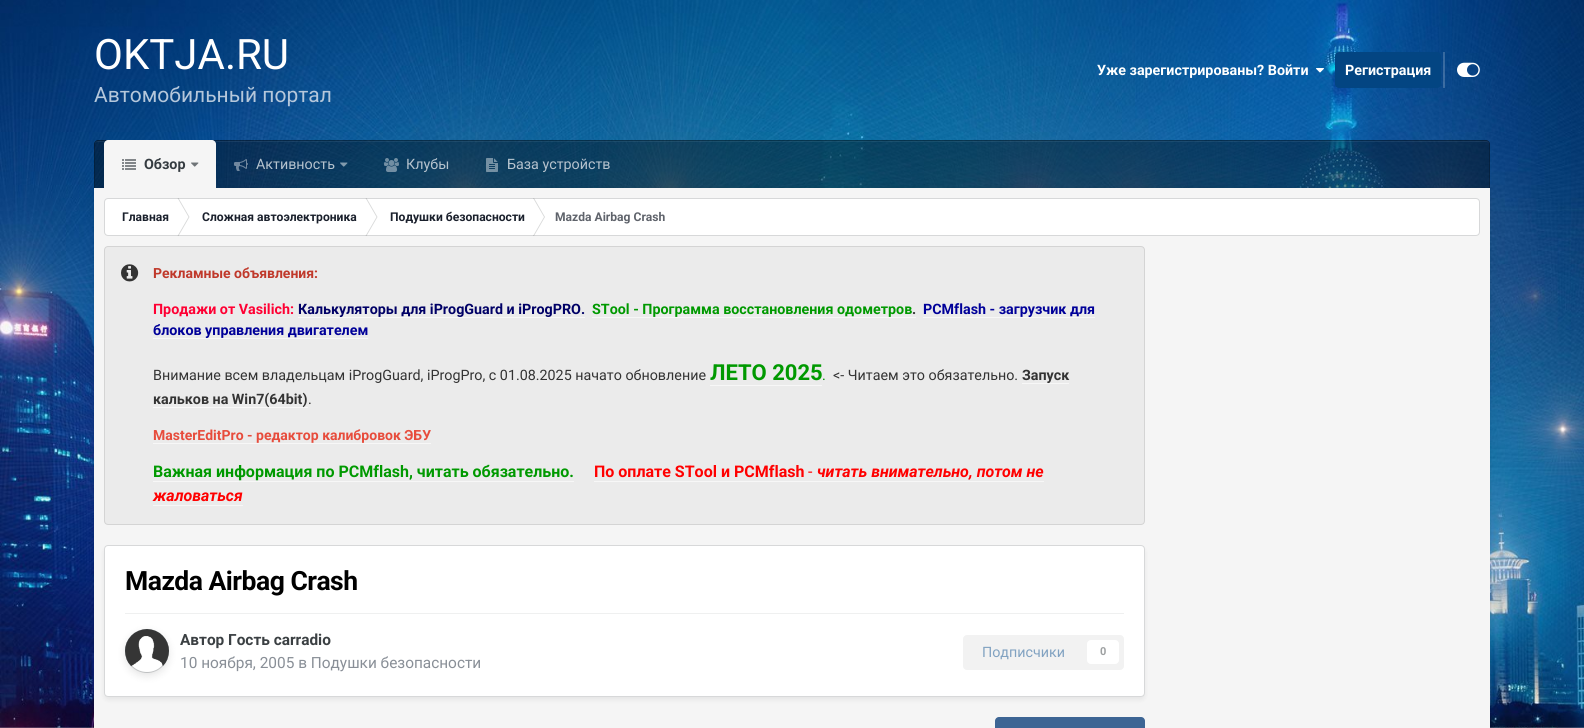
#include <cairo.h>
#include <math.h>
#include <stddef.h>

typedef struct { double x, y; const char *s; } line_t;

static void ink(cairo_t *ctx, unsigned color) {
    cairo_set_source_rgb(ctx, (color >> 16) / 255.0, (color >> 8 & 255) / 255.0, (color & 255) / 255.0);
}

static void write_spaced(cairo_t *ctx, double x, double y, const char *s, double letter, double word) {
    cairo_move_to(ctx, x, y);
    while (*s) {
        char ch[5] = {0};
        int n = 0;
        do ch[n++] = *s++; while ((*s & 0xC0) == 0x80);
        cairo_show_text(ctx, ch);
        cairo_rel_move_to(ctx, letter + word * (*ch == ' '), 0);
    }
}

static void round_path(cairo_t *ctx, double x, double y, double w, double h, double r) {
    cairo_new_sub_path(ctx);
    cairo_arc(ctx, x + w - r, y + h - r, r, 0, M_PI / 2);
    cairo_arc(ctx, x + r, y + h - r, r, M_PI / 2, M_PI);
    cairo_arc(ctx, x + r, y + r, r, M_PI, 1.5 * M_PI);
    cairo_arc(ctx, x + w - r, y + r, r, 1.5 * M_PI, 2 * M_PI);
    cairo_close_path(ctx);
}

static void blur_box(cairo_t *ctx, double x, double y, double w, double h, double r, double blur, double alpha) {
    cairo_push_group_with_content(ctx, CAIRO_CONTENT_ALPHA);
    cairo_set_operator(ctx, CAIRO_OPERATOR_SOURCE);
    for (int i = 15; i >= -15 && fmin(w, h) + blur * i / 3 > 0; i -= 2) {
        double e = blur * i / 6;
        cairo_set_source_rgba(ctx, 0, 0, 0, alpha * erfc((i - 1) / 8.5) / 2);
        round_path(ctx, x - e, y - e, w + 2 * e, h + 2 * e, fmax(0, fmin(r + e + blur * .6, fmin(w, h) / 2 + e)));
        cairo_fill(ctx);
    }
    cairo_pattern_t *soft = cairo_pop_group(ctx);
    cairo_mask(ctx, soft);
    cairo_pattern_destroy(soft);
}

static void paste(cairo_t *ctx, const char *path, double x, double y, double w, double h) {
    cairo_surface_t *image = cairo_image_surface_create_from_png(path);
    cairo_save(ctx);
    cairo_set_source_surface(ctx, image, x, y);
    cairo_rectangle(ctx, x, y, w, h);
    cairo_fill(ctx);
    cairo_restore(ctx);
    cairo_surface_destroy(image);
}

int main(void) {
    cairo_surface_t *surface = cairo_image_surface_create(CAIRO_FORMAT_RGB24, 1584, 728);
    cairo_t *ctx = cairo_create(surface);
    cairo_font_options_t *options = cairo_font_options_create();
    cairo_font_options_set_hint_metrics(options, CAIRO_HINT_METRICS_OFF);
    cairo_font_options_set_hint_style(options, CAIRO_HINT_STYLE_NONE);
    cairo_set_font_options(ctx, options);
    cairo_set_miter_limit(ctx, 4);
    ink(ctx, 0xFFFFFF);
    cairo_paint(ctx);
    paste(ctx, "media/1.png", 0, 0, 1584, 728);
    cairo_select_font_face(ctx, "Roboto", CAIRO_FONT_SLANT_NORMAL, CAIRO_FONT_WEIGHT_NORMAL);
    cairo_set_font_size(ctx, 42);
    ink(ctx, 0xFFFFFF);
    cairo_move_to(ctx, 94, 69);
    cairo_show_text(ctx, "OKTJA.RU");
    cairo_set_font_size(ctx, 21);
    ink(ctx, 0xB5C7DB);
    cairo_move_to(ctx, 94, 102);
    cairo_show_text(ctx, "Автомобильный портал");
    cairo_select_font_face(ctx, "Roboto", CAIRO_FONT_SLANT_NORMAL, CAIRO_FONT_WEIGHT_BOLD);
    cairo_set_font_size(ctx, 14.3);
    ink(ctx, 0xFFFFFF);
    cairo_move_to(ctx, 1097, 75);
    cairo_show_text(ctx, "Уже зарегистрированы? Войти");
    paste(ctx, "media/2.png", 1316, 68, 8, 5);
    ink(ctx, 0x034582);
    round_path(ctx, 1335, 52, 106, 36, 4);
    cairo_fill(ctx);
    ink(ctx, 0xFFFFFF);
    cairo_move_to(ctx, 1345, 75);
    cairo_show_text(ctx, "Регистрация");
    cairo_set_source_rgba(ctx, 1, 1, 1, 0.2);
    cairo_rectangle(ctx, 1443, 52, 2, 36);
    cairo_fill(ctx);
    paste(ctx, "media/3.png", 1457, 62, 23, 15);
    ink(ctx, 0x000000);
    blur_box(ctx, 94, 189, 1396, 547, 3, 1.5, 0.08);
    blur_box(ctx, 94, 188, 1396, 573, 3, 10, 0.06);
    cairo_set_source_rgba(ctx, 0, 0, 0, 0.4);
    cairo_new_path(ctx);
    cairo_move_to(ctx, 98, 140);
    cairo_line_to(ctx, 1486, 140);
    cairo_curve_to(ctx, 1488, 140, 1490, 142, 1490, 144);
    cairo_line_to(ctx, 1490, 188);
    cairo_line_to(ctx, 94, 188);
    cairo_line_to(ctx, 94, 144);
    cairo_curve_to(ctx, 94, 142, 96, 140, 98, 140);
    cairo_close_path(ctx);
    cairo_fill(ctx);
    cairo_set_source_rgba(ctx, 1, 1, 1, 0.07);
    cairo_new_path(ctx);
    cairo_move_to(ctx, 98, 142);
    cairo_line_to(ctx, 1486, 142);
    cairo_curve_to(ctx, 1488, 142, 1489, 143, 1489, 145);
    cairo_line_to(ctx, 1489, 144);
    cairo_curve_to(ctx, 1489, 142, 1488, 141, 1486, 141);
    cairo_line_to(ctx, 98, 141);
    cairo_curve_to(ctx, 96, 141, 95, 142, 95, 144);
    cairo_line_to(ctx, 95, 145);
    cairo_curve_to(ctx, 95, 143, 96, 142, 98, 142);
    cairo_close_path(ctx);
    cairo_fill(ctx);
    cairo_set_source_rgba(ctx, 0, 0, 0, 0.2);
    cairo_set_fill_rule(ctx, CAIRO_FILL_RULE_EVEN_ODD);
    cairo_new_path(ctx);
    cairo_move_to(ctx, 98, 140);
    cairo_line_to(ctx, 1486, 140);
    cairo_curve_to(ctx, 1488, 140, 1490, 142, 1490, 144);
    cairo_line_to(ctx, 1490, 188);
    cairo_line_to(ctx, 94, 188);
    cairo_line_to(ctx, 94, 144);
    cairo_curve_to(ctx, 94, 142, 96, 140, 98, 140);
    cairo_close_path(ctx);
    cairo_move_to(ctx, 98, 141);
    cairo_line_to(ctx, 1486, 141);
    cairo_curve_to(ctx, 1488, 141, 1489, 142, 1489, 144);
    cairo_line_to(ctx, 1489, 188);
    cairo_line_to(ctx, 95, 188);
    cairo_line_to(ctx, 95, 144);
    cairo_curve_to(ctx, 95, 142, 96, 141, 98, 141);
    cairo_close_path(ctx);
    cairo_fill(ctx);
    ink(ctx, 0xF5F5F5);
    cairo_new_path(ctx);
    cairo_move_to(ctx, 108, 140);
    cairo_line_to(ctx, 212, 140);
    cairo_curve_to(ctx, 214, 140, 216, 142, 216, 144);
    cairo_line_to(ctx, 216, 188);
    cairo_line_to(ctx, 104, 188);
    cairo_line_to(ctx, 104, 144);
    cairo_curve_to(ctx, 104, 142, 106, 140, 108, 140);
    cairo_close_path(ctx);
    cairo_fill(ctx);
    paste(ctx, "media/4.png", 122, 159, 14, 11);
    ink(ctx, 0x353C41);
    cairo_move_to(ctx, 144, 169);
    cairo_show_text(ctx, "Обзор");
    paste(ctx, "media/5.png", 191, 162, 8, 5);
    paste(ctx, "media/6.png", 234, 159, 14, 12);
    cairo_select_font_face(ctx, "Roboto", CAIRO_FONT_SLANT_NORMAL, CAIRO_FONT_WEIGHT_NORMAL);
    ink(ctx, 0xB6C3CE);
    cairo_move_to(ctx, 256, 169);
    cairo_show_text(ctx, "Активность");
    paste(ctx, "media/7.png", 340, 162, 8, 5);
    paste(ctx, "media/8.png", 384, 158, 15, 14);
    cairo_move_to(ctx, 406, 169);
    cairo_show_text(ctx, "Клубы");
    paste(ctx, "media/9.png", 486, 158, 12, 14);
    cairo_move_to(ctx, 507, 169);
    cairo_show_text(ctx, "База устройств");
    ink(ctx, 0xF5F5F5);
    cairo_rectangle(ctx, 94, 188, 1396, 540);
    cairo_fill(ctx);
    ink(ctx, 0xFFFFFF);
    round_path(ctx, 104, 198, 1376, 38, 4);
    cairo_fill(ctx);
    ink(ctx, 0xD8D9D9);
    cairo_set_fill_rule(ctx, CAIRO_FILL_RULE_WINDING);
    cairo_new_path(ctx);
    cairo_move_to(ctx, 177.5, 198);
    cairo_line_to(ctx, 178.5, 198);
    cairo_line_to(ctx, 189.5, 217);
    cairo_line_to(ctx, 188.5, 217);
    cairo_close_path(ctx);
    cairo_move_to(ctx, 177.5, 236);
    cairo_line_to(ctx, 178.5, 236);
    cairo_line_to(ctx, 189.5, 217);
    cairo_line_to(ctx, 188.5, 217);
    cairo_close_path(ctx);
    cairo_fill(ctx);
    cairo_new_path(ctx);
    cairo_move_to(ctx, 365.5, 198);
    cairo_line_to(ctx, 366.5, 198);
    cairo_line_to(ctx, 377.5, 217);
    cairo_line_to(ctx, 376.5, 217);
    cairo_close_path(ctx);
    cairo_move_to(ctx, 365.5, 236);
    cairo_line_to(ctx, 366.5, 236);
    cairo_line_to(ctx, 377.5, 217);
    cairo_line_to(ctx, 376.5, 217);
    cairo_close_path(ctx);
    cairo_fill(ctx);
    cairo_new_path(ctx);
    cairo_move_to(ctx, 533, 198);
    cairo_line_to(ctx, 534, 198);
    cairo_line_to(ctx, 545, 217);
    cairo_line_to(ctx, 544, 217);
    cairo_close_path(ctx);
    cairo_move_to(ctx, 533, 236);
    cairo_line_to(ctx, 534, 236);
    cairo_line_to(ctx, 545, 217);
    cairo_line_to(ctx, 544, 217);
    cairo_close_path(ctx);
    cairo_fill(ctx);
    round_path(ctx, 104.5, 198.5, 1375, 37, 3.5);
    cairo_set_source_rgba(ctx, 0.231, 0.251, 0.263, 0.2);
    cairo_set_line_width(ctx, 1);
    cairo_stroke(ctx);
    cairo_select_font_face(ctx, "Roboto", CAIRO_FONT_SLANT_NORMAL, CAIRO_FONT_WEIGHT_BOLD);
    cairo_set_font_size(ctx, 12.1);
    ink(ctx, 0x1A202C);
    {
        static const line_t items[] = {
            {122, 221, "Главная"},
            {202, 221, "Сложная автоэлектроника"},
            {390, 221, "Подушки безопасности"},
        };
        for (size_t i = 0; i < sizeof items / sizeof *items; i++) {
            cairo_move_to(ctx, items[i].x, items[i].y);
            cairo_show_text(ctx, items[i].s);
        }
    }
    ink(ctx, 0x5F636B);
    cairo_move_to(ctx, 555, 221);
    cairo_show_text(ctx, "Mazda Airbag Crash");
    ink(ctx, 0xEBEBEB);
    round_path(ctx, 104, 246, 1041, 279, 4);
    cairo_fill(ctx);
    round_path(ctx, 104.5, 246.5, 1040, 278, 3.5);
    cairo_set_source_rgba(ctx, 0, 0, 0, 0.1);
    cairo_stroke(ctx);
    paste(ctx, "media/10.png", 121, 264, 18, 18);
    cairo_set_font_size(ctx, 14);
    ink(ctx, 0xC0392B);
    cairo_move_to(ctx, 153, 278);
    cairo_show_text(ctx, "Рекламные объявления:");
    cairo_set_font_size(ctx, 14.3);
    ink(ctx, 0xFF0033);
    cairo_move_to(ctx, 153, 314);
    cairo_show_text(ctx, "Продажи от Vasilich:");
    ink(ctx, 0xF7F7F7);
    cairo_rectangle(ctx, 298, 317, 287, 1);
    cairo_fill(ctx);
    ink(ctx, 0x000066);
    cairo_move_to(ctx, 298, 314);
    cairo_show_text(ctx, "Калькуляторы для iProgGuard и iProgPRO.");
    ink(ctx, 0x009900);
    cairo_move_to(ctx, 592, 314);
    cairo_show_text(ctx, "STool - Программа восстановления одометров");
    ink(ctx, 0x333333);
    cairo_move_to(ctx, 912, 314);
    cairo_show_text(ctx, ".");
    ink(ctx, 0xF7F7F7);
    cairo_rectangle(ctx, 592, 317, 324, 1);
    cairo_fill(ctx);
    cairo_rectangle(ctx, 923, 317, 172, 1);
    cairo_fill(ctx);
    ink(ctx, 0x000099);
    cairo_move_to(ctx, 923, 314);
    cairo_show_text(ctx, "PCMflash - загрузчик для");
    ink(ctx, 0xF7F7F7);
    cairo_rectangle(ctx, 153, 338, 215, 1);
    cairo_fill(ctx);
    ink(ctx, 0x000099);
    cairo_move_to(ctx, 153, 335);
    cairo_show_text(ctx, "блоков управления двигателем");
    cairo_select_font_face(ctx, "Roboto", CAIRO_FONT_SLANT_NORMAL, CAIRO_FONT_WEIGHT_NORMAL);
    ink(ctx, 0x333333);
    cairo_move_to(ctx, 153, 380);
    cairo_show_text(ctx, "Внимание всем владельцам iProgGuard, iProgPro, с 01.08.2025 начато обновление");
    cairo_select_font_face(ctx, "Roboto", CAIRO_FONT_SLANT_NORMAL, CAIRO_FONT_WEIGHT_BOLD);
    cairo_set_font_size(ctx, 22);
    ink(ctx, 0x009900);
    cairo_move_to(ctx, 710, 380);
    cairo_show_text(ctx, "ЛЕТО 2025");
    ink(ctx, 0xF7F7F7);
    cairo_rectangle(ctx, 710, 385, 112, 1);
    cairo_fill(ctx);
    cairo_select_font_face(ctx, "Roboto", CAIRO_FONT_SLANT_NORMAL, CAIRO_FONT_WEIGHT_NORMAL);
    cairo_set_font_size(ctx, 14.3);
    ink(ctx, 0x009900);
    cairo_move_to(ctx, 822, 380);
    cairo_show_text(ctx, ".");
    ink(ctx, 0x333333);
    cairo_move_to(ctx, 833, 380);
    cairo_show_text(ctx, "<- Читаем это обязательно.");
    ink(ctx, 0xF7F7F7);
    cairo_rectangle(ctx, 1022, 383, 47, 1);
    cairo_fill(ctx);
    cairo_select_font_face(ctx, "Roboto", CAIRO_FONT_SLANT_NORMAL, CAIRO_FONT_WEIGHT_BOLD);
    ink(ctx, 0x333333);
    cairo_move_to(ctx, 1022, 380);
    cairo_show_text(ctx, "Запуск");
    ink(ctx, 0xF7F7F7);
    cairo_rectangle(ctx, 153, 407, 155, 1);
    cairo_fill(ctx);
    ink(ctx, 0x333333);
    cairo_move_to(ctx, 153, 404);
    cairo_show_text(ctx, "кальков на Win7(64bit)");
    cairo_select_font_face(ctx, "Roboto", CAIRO_FONT_SLANT_NORMAL, CAIRO_FONT_WEIGHT_NORMAL);
    cairo_move_to(ctx, 308, 404);
    cairo_show_text(ctx, ".");
    cairo_select_font_face(ctx, "Roboto", CAIRO_FONT_SLANT_NORMAL, CAIRO_FONT_WEIGHT_BOLD);
    cairo_set_font_size(ctx, 14);
    ink(ctx, 0xE74C3C);
    cairo_move_to(ctx, 153, 440);
    cairo_show_text(ctx, "MasterEditPro - редактор калибровок ЭБУ");
    ink(ctx, 0xF7F7F7);
    cairo_rectangle(ctx, 153, 443, 278, 1);
    cairo_fill(ctx);
    cairo_set_font_size(ctx, 16);
    ink(ctx, 0x009900);
    cairo_move_to(ctx, 153, 477);
    cairo_show_text(ctx, "Важная информация по PCMflash, читать обязательно.");
    ink(ctx, 0xF7F7F7);
    cairo_rectangle(ctx, 153, 481, 421, 1);
    cairo_fill(ctx);
    ink(ctx, 0xFF0000);
    cairo_move_to(ctx, 594, 477);
    cairo_show_text(ctx, "По оплате STool и PCMflash");
    cairo_select_font_face(ctx, "Roboto", CAIRO_FONT_SLANT_NORMAL, CAIRO_FONT_WEIGHT_NORMAL);
    cairo_move_to(ctx, 808, 477);
    cairo_show_text(ctx, "-");
    cairo_select_font_face(ctx, "Roboto", CAIRO_FONT_SLANT_ITALIC, CAIRO_FONT_WEIGHT_BOLD);
    cairo_move_to(ctx, 817, 477);
    cairo_show_text(ctx, "читать внимательно, потом не");
    ink(ctx, 0xF7F7F7);
    cairo_rectangle(ctx, 594, 481, 450, 1);
    cairo_fill(ctx);
    ink(ctx, 0xFF0000);
    cairo_move_to(ctx, 153, 501);
    cairo_show_text(ctx, "жаловаться");
    ink(ctx, 0xF7F7F7);
    cairo_rectangle(ctx, 153, 505, 90, 1);
    cairo_fill(ctx);
    ink(ctx, 0x000000);
    blur_box(ctx, 105, 549, 1039, 150, 3, 3, 0.08);
    ink(ctx, 0xFFFFFF);
    round_path(ctx, 104, 545, 1041, 152, 4);
    cairo_fill(ctx);
    round_path(ctx, 104.5, 545.5, 1040, 151, 3.5);
    cairo_set_source_rgba(ctx, 0.231, 0.251, 0.263, 0.2);
    cairo_stroke(ctx);
    cairo_select_font_face(ctx, "Roboto", CAIRO_FONT_SLANT_NORMAL, CAIRO_FONT_WEIGHT_BOLD);
    cairo_set_font_size(ctx, 26.5);
    ink(ctx, 0x000000);
    write_spaced(ctx, 125, 590, "Mazda Airbag Crash", -0.5, 0);
    ink(ctx, 0xEFF0F0);
    cairo_rectangle(ctx, 125, 613, 999, 1);
    cairo_fill(ctx);
    paste(ctx, "media/11.png", 125, 629, 44, 44);
    cairo_save(ctx);
    cairo_set_fill_rule(ctx, CAIRO_FILL_RULE_EVEN_ODD);
    cairo_new_path(ctx);
    cairo_move_to(ctx, 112, 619);
    cairo_line_to(ctx, 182, 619);
    cairo_line_to(ctx, 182, 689);
    cairo_line_to(ctx, 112, 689);
    cairo_close_path(ctx);
    cairo_move_to(ctx, 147, 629);
    cairo_curve_to(ctx, 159, 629, 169, 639, 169, 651);
    cairo_curve_to(ctx, 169, 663, 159, 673, 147, 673);
    cairo_curve_to(ctx, 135, 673, 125, 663, 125, 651);
    cairo_curve_to(ctx, 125, 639, 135, 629, 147, 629);
    cairo_close_path(ctx);
    cairo_clip(ctx);
    ink(ctx, 0x000000);
    blur_box(ctx, 125, 632, 44, 44, 22, 4, 0.1);
    cairo_restore(ctx);
    cairo_arc(ctx, 147, 651, 21.5, 0, 2 * M_PI);
    cairo_set_source_rgba(ctx, 0.231, 0.251, 0.263, 0.3);
    cairo_stroke(ctx);
    cairo_set_font_size(ctx, 15.4);
    ink(ctx, 0x3B4043);
    cairo_move_to(ctx, 180, 645);
    cairo_show_text(ctx, "Автор Гость carradio");
    cairo_select_font_face(ctx, "Roboto", CAIRO_FONT_SLANT_NORMAL, CAIRO_FONT_WEIGHT_NORMAL);
    ink(ctx, 0x898F97);
    cairo_move_to(ctx, 180, 668);
    cairo_show_text(ctx, "10 ноября, 2005 в Подушки безопасности");
    ink(ctx, 0xF2F2F2);
    round_path(ctx, 963, 635, 161, 35, 4);
    cairo_fill(ctx);
    cairo_set_font_size(ctx, 14.3);
    ink(ctx, 0x81A2C1);
    cairo_move_to(ctx, 982, 657);
    cairo_show_text(ctx, "Подписчики");
    ink(ctx, 0xFFFFFF);
    round_path(ctx, 1087, 640, 32, 24, 4);
    cairo_fill(ctx);
    cairo_select_font_face(ctx, "Roboto", CAIRO_FONT_SLANT_NORMAL, CAIRO_FONT_WEIGHT_BOLD);
    cairo_set_font_size(ctx, 11);
    ink(ctx, 0x9DA0A1);
    cairo_move_to(ctx, 1100, 655);
    cairo_show_text(ctx, "0");
    ink(ctx, 0x3D6594);
    round_path(ctx, 995, 717, 150, 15, 4);
    cairo_fill(ctx);
    cairo_surface_write_to_png(surface, "image.png");
    cairo_font_options_destroy(options);
    cairo_destroy(ctx);
    cairo_surface_destroy(surface);
    return 0;
}
